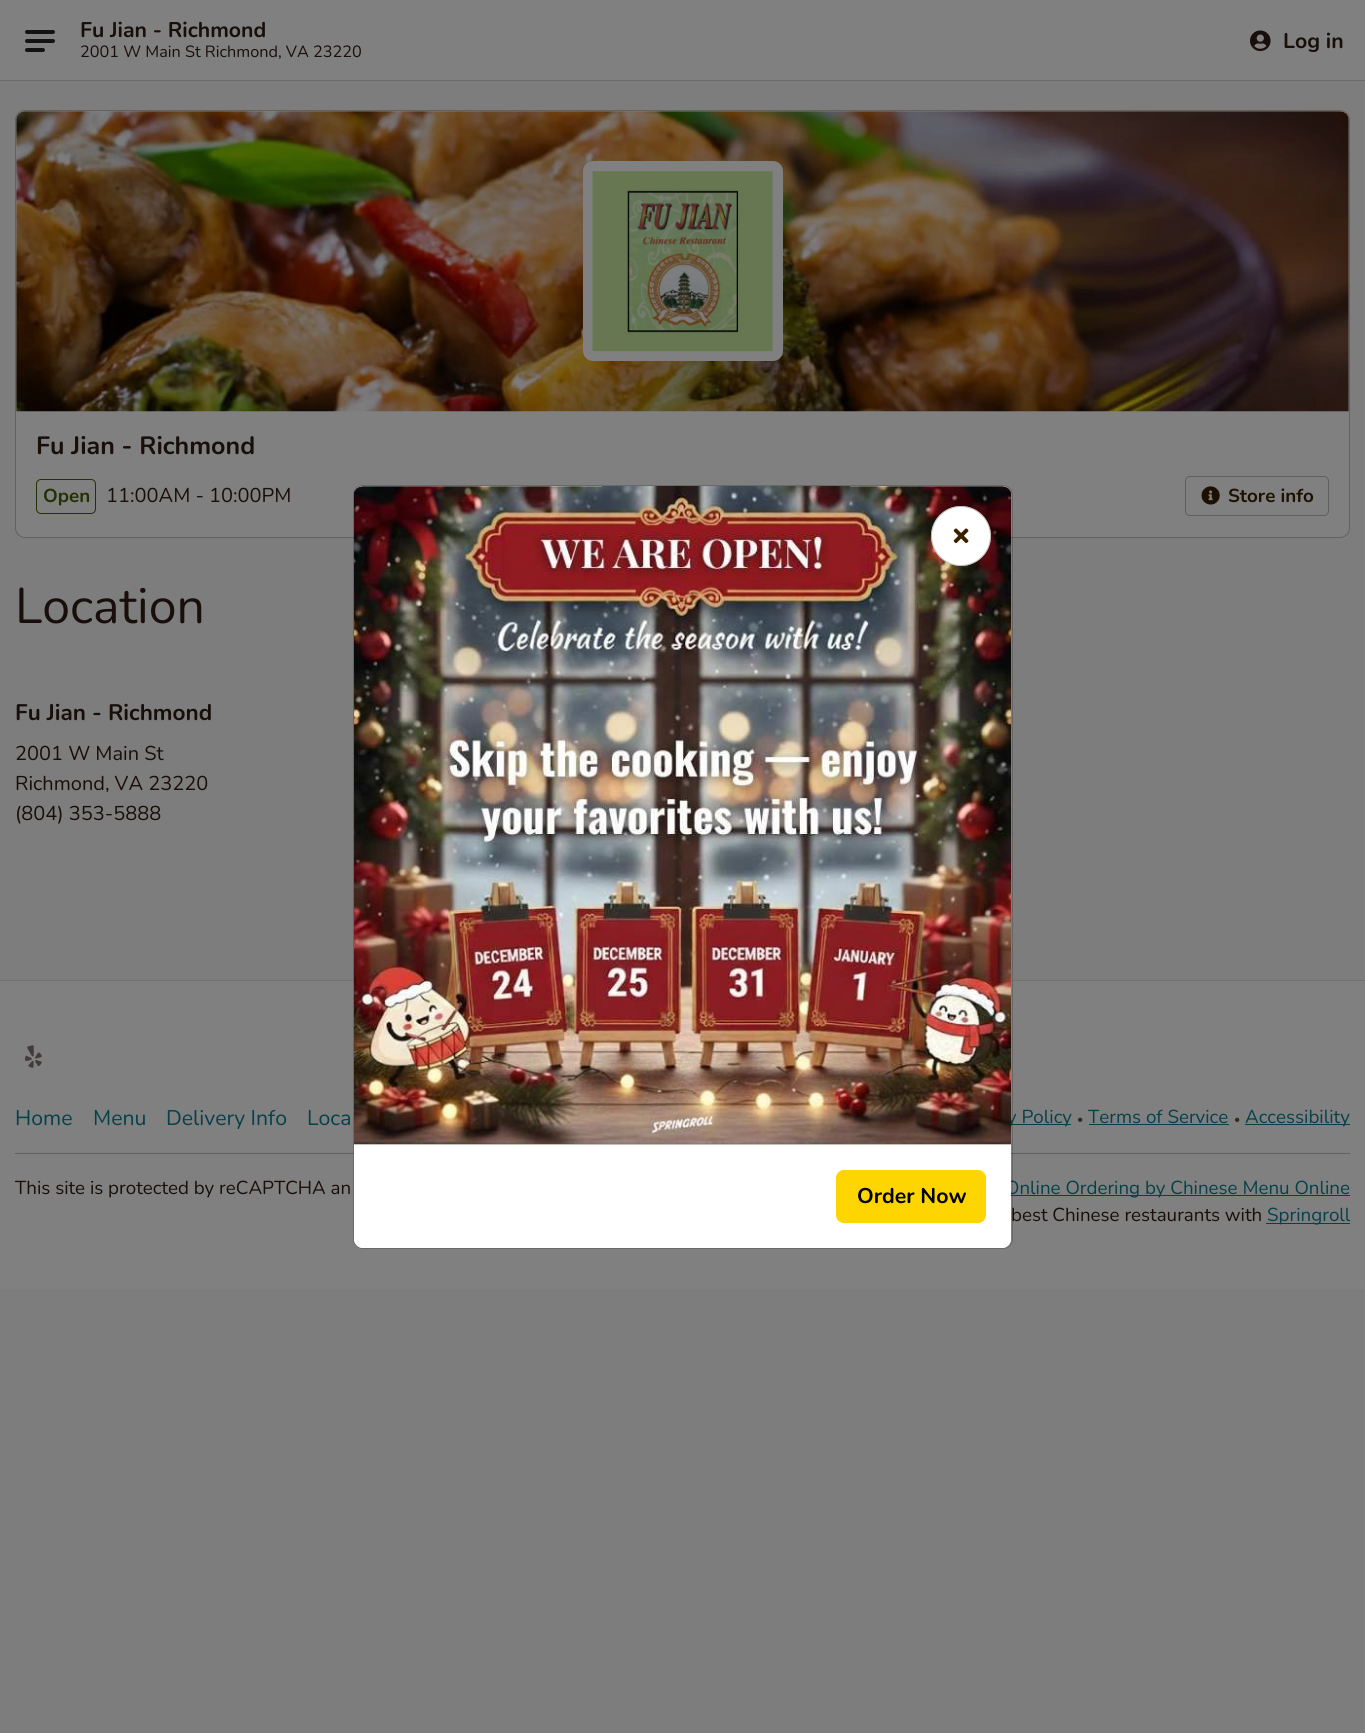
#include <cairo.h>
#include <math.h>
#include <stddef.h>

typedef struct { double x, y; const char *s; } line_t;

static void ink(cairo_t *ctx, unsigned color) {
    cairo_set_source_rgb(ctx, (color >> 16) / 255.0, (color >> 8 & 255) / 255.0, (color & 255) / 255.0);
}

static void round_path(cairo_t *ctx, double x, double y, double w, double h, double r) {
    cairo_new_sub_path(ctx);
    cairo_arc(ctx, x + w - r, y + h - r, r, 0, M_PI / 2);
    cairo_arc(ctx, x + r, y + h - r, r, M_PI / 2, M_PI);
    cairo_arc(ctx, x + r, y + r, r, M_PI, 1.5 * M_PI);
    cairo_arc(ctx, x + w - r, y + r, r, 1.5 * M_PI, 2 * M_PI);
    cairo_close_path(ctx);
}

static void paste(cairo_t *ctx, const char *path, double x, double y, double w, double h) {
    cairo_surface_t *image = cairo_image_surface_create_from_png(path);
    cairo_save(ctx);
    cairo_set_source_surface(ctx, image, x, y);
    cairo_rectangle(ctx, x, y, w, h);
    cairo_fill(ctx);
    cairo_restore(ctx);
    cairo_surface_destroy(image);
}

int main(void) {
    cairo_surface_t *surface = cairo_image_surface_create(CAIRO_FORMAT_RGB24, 1365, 1733);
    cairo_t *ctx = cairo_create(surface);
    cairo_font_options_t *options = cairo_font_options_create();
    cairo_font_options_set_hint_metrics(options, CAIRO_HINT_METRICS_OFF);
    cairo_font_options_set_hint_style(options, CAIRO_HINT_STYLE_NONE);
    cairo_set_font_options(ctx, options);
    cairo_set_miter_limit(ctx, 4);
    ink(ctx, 0x7E7D7D);
    cairo_paint(ctx);
    ink(ctx, 0x6C6A67);
    cairo_rectangle(ctx, 0, 80, 1365, 1);
    cairo_fill(ctx);
    ink(ctx, 0x808080);
    cairo_rectangle(ctx, 0, 0, 1365, 80);
    cairo_fill(ctx);
    ink(ctx, 0x111315);
    round_path(ctx, 25, 30, 30, 4, 2);
    cairo_fill(ctx);
    round_path(ctx, 25, 39, 30, 4, 2);
    cairo_fill(ctx);
    round_path(ctx, 25, 48, 20, 4, 2);
    cairo_fill(ctx);
    cairo_select_font_face(ctx, "Nunito", CAIRO_FONT_SLANT_NORMAL, CAIRO_FONT_WEIGHT_BOLD);
    cairo_set_font_size(ctx, 21.25);
    ink(ctx, 0x180F0C);
    cairo_move_to(ctx, 80, 37);
    cairo_show_text(ctx, "Fu Jian - Richmond");
    cairo_select_font_face(ctx, "Nunito", CAIRO_FONT_SLANT_NORMAL, CAIRO_FONT_WEIGHT_NORMAL);
    cairo_set_font_size(ctx, 16.25);
    cairo_move_to(ctx, 80, 57);
    cairo_show_text(ctx, "2001 W Main St Richmond, VA 23220");
    paste(ctx, "media/1.png", 1250, 30, 21, 22);
    cairo_select_font_face(ctx, "Nunito", CAIRO_FONT_SLANT_NORMAL, CAIRO_FONT_WEIGHT_BOLD);
    cairo_set_font_size(ctx, 21.25);
    cairo_move_to(ctx, 1283, 48);
    cairo_show_text(ctx, "Log in");
    ink(ctx, 0x808080);
    round_path(ctx, 15, 110, 1335, 428, 10);
    cairo_fill(ctx);
    round_path(ctx, 15.5, 110.5, 1334, 427, 9.5);
    cairo_set_source_rgba(ctx, 0.29, 0.278, 0.243, 0.55);
    cairo_set_line_width(ctx, 1);
    cairo_stroke(ctx);
    paste(ctx, "media/2.png", 16, 111, 1333, 301);
    ink(ctx, 0x808080);
    round_path(ctx, 583, 161, 200, 200, 10);
    cairo_fill(ctx);
    paste(ctx, "media/3.png", 592, 171, 181, 181);
    cairo_set_font_size(ctx, 25);
    ink(ctx, 0x180F0C);
    cairo_move_to(ctx, 36, 454);
    cairo_show_text(ctx, "Fu Jian - Richmond");
    round_path(ctx, 36.5, 479.5, 59, 34, 4.5);
    ink(ctx, 0x253003);
    cairo_stroke(ctx);
    cairo_set_font_size(ctx, 18.75);
    cairo_move_to(ctx, 43, 502);
    cairo_show_text(ctx, "Open");
    cairo_select_font_face(ctx, "Nunito", CAIRO_FONT_SLANT_NORMAL, CAIRO_FONT_WEIGHT_NORMAL);
    cairo_set_font_size(ctx, 20);
    ink(ctx, 0x180F0C);
    cairo_move_to(ctx, 106, 502);
    cairo_show_text(ctx, "11:00AM - 10:00PM");
    round_path(ctx, 1185.5, 476.5, 143, 39, 4.5);
    ink(ctx, 0x62605C);
    cairo_stroke(ctx);
    paste(ctx, "media/4.png", 1201, 486, 19, 19);
    cairo_select_font_face(ctx, "Nunito", CAIRO_FONT_SLANT_NORMAL, CAIRO_FONT_WEIGHT_BOLD);
    cairo_set_font_size(ctx, 18.75);
    ink(ctx, 0x1D1100);
    cairo_move_to(ctx, 1228, 502);
    cairo_show_text(ctx, "Store info");
    cairo_select_font_face(ctx, "Nunito", CAIRO_FONT_SLANT_NORMAL, CAIRO_FONT_WEIGHT_NORMAL);
    cairo_set_font_size(ctx, 50);
    ink(ctx, 0x180F0C);
    cairo_move_to(ctx, 15, 623);
    cairo_show_text(ctx, "Location");
    cairo_select_font_face(ctx, "Nunito", CAIRO_FONT_SLANT_NORMAL, CAIRO_FONT_WEIGHT_BOLD);
    cairo_set_font_size(ctx, 22.5);
    cairo_move_to(ctx, 15, 720);
    cairo_show_text(ctx, "Fu Jian - Richmond");
    cairo_select_font_face(ctx, "Nunito", CAIRO_FONT_SLANT_NORMAL, CAIRO_FONT_WEIGHT_NORMAL);
    cairo_set_font_size(ctx, 20);
    {
        static const line_t items[] = {
            {15, 760, "2001 W Main St"},
            {15, 790, "Richmond, VA 23220"},
            {15, 820, "(804) 353-5888"},
        };
        for (size_t i = 0; i < sizeof items / sizeof *items; i++) {
            cairo_move_to(ctx, items[i].x, items[i].y);
            cairo_show_text(ctx, items[i].s);
        }
    }
    ink(ctx, 0x808080);
    cairo_rectangle(ctx, 0, 981, 1365, 308);
    cairo_fill(ctx);
    ink(ctx, 0x747371);
    cairo_rectangle(ctx, 0, 980, 1365, 1);
    cairo_fill(ctx);
    paste(ctx, "media/5.png", 25, 1045, 17, 23);
    cairo_set_font_size(ctx, 21.25);
    ink(ctx, 0x044149);
    {
        static const line_t items[] = {
            {15, 1125, "Home"},
            {93, 1125, "Menu"},
            {166, 1125, "Delivery Info"},
            {307, 1125, "Loca"},
        };
        for (size_t i = 0; i < sizeof items / sizeof *items; i++) {
            cairo_move_to(ctx, items[i].x, items[i].y);
            cairo_show_text(ctx, items[i].s);
        }
    }
    cairo_rectangle(ctx, 1011, 1124, 60, 1);
    cairo_fill(ctx);
    cairo_set_font_size(ctx, 18.75);
    cairo_move_to(ctx, 1007, 1123);
    cairo_show_text(ctx, "y Policy");
    cairo_set_font_size(ctx, 12);
    ink(ctx, 0x312C1F);
    cairo_move_to(ctx, 1077, 1123);
    cairo_show_text(ctx, "•");
    cairo_set_font_size(ctx, 18.75);
    ink(ctx, 0x044149);
    cairo_move_to(ctx, 1088, 1123);
    cairo_show_text(ctx, "Terms of Service");
    cairo_rectangle(ctx, 1089, 1124, 140, 1);
    cairo_fill(ctx);
    cairo_set_font_size(ctx, 12);
    ink(ctx, 0x312C1F);
    cairo_move_to(ctx, 1234, 1123);
    cairo_show_text(ctx, "•");
    ink(ctx, 0x044149);
    cairo_rectangle(ctx, 1245, 1124, 105, 1);
    cairo_fill(ctx);
    cairo_set_font_size(ctx, 18.75);
    cairo_move_to(ctx, 1245, 1123);
    cairo_show_text(ctx, "Accessibility");
    ink(ctx, 0x62605C);
    cairo_rectangle(ctx, 15, 1153, 1335, 1);
    cairo_fill(ctx);
    ink(ctx, 0x180F0C);
    cairo_move_to(ctx, 15, 1194);
    cairo_show_text(ctx, "This site is protected by reCAPTCHA an");
    ink(ctx, 0x044149);
    cairo_rectangle(ctx, 1011, 1195, 339, 1);
    cairo_fill(ctx);
    cairo_move_to(ctx, 1005, 1194);
    cairo_show_text(ctx, "Online Ordering by Chinese Menu Online");
    ink(ctx, 0x180F0C);
    cairo_move_to(ctx, 1011, 1221);
    cairo_show_text(ctx, "best Chinese restaurants with");
    ink(ctx, 0x044149);
    cairo_rectangle(ctx, 1266, 1223, 84, 1);
    cairo_fill(ctx);
    cairo_move_to(ctx, 1267, 1221);
    cairo_show_text(ctx, "Springroll");
    ink(ctx, 0xFFFFFF);
    round_path(ctx, 354, 486, 657, 762, 9);
    cairo_fill(ctx);
    round_path(ctx, 353.5, 485.5, 659, 763, 9.5);
    cairo_set_source_rgba(ctx, 0, 0, 0, 0.18);
    cairo_stroke(ctx);
    paste(ctx, "media/6.png", 354, 486, 657, 658);
    ink(ctx, 0xFFFFFF);
    cairo_arc(ctx, 961, 536, 30, 0, 2 * M_PI);
    cairo_fill(ctx);
    cairo_arc(ctx, 961, 536, 29.5, 0, 2 * M_PI);
    cairo_set_source_rgba(ctx, 0.58, 0.553, 0.486, 0.55);
    cairo_stroke(ctx);
    paste(ctx, "media/7.png", 953, 528, 16, 16);
    ink(ctx, 0xFFFFFF);
    cairo_new_path(ctx);
    cairo_move_to(ctx, 354, 1144);
    cairo_line_to(ctx, 1011, 1144);
    cairo_line_to(ctx, 1011, 1239);
    cairo_curve_to(ctx, 1011, 1244, 1007, 1248, 1002, 1248);
    cairo_line_to(ctx, 363, 1248);
    cairo_curve_to(ctx, 358, 1248, 354, 1244, 354, 1239);
    cairo_close_path(ctx);
    cairo_fill(ctx);
    ink(ctx, 0xC4C0B7);
    cairo_rectangle(ctx, 354, 1144, 657, 1);
    cairo_fill(ctx);
    ink(ctx, 0xFFD500);
    round_path(ctx, 836.5, 1170.5, 149, 52, 7.5);
    cairo_fill_preserve(ctx);
    cairo_stroke(ctx);
    cairo_select_font_face(ctx, "Nunito", CAIRO_FONT_SLANT_NORMAL, CAIRO_FONT_WEIGHT_BOLD);
    cairo_set_font_size(ctx, 21.25);
    ink(ctx, 0x000000);
    cairo_move_to(ctx, 857, 1203);
    cairo_show_text(ctx, "Order Now");
    cairo_surface_write_to_png(surface, "image.png");
    cairo_font_options_destroy(options);
    cairo_destroy(ctx);
    cairo_surface_destroy(surface);
    return 0;
}
